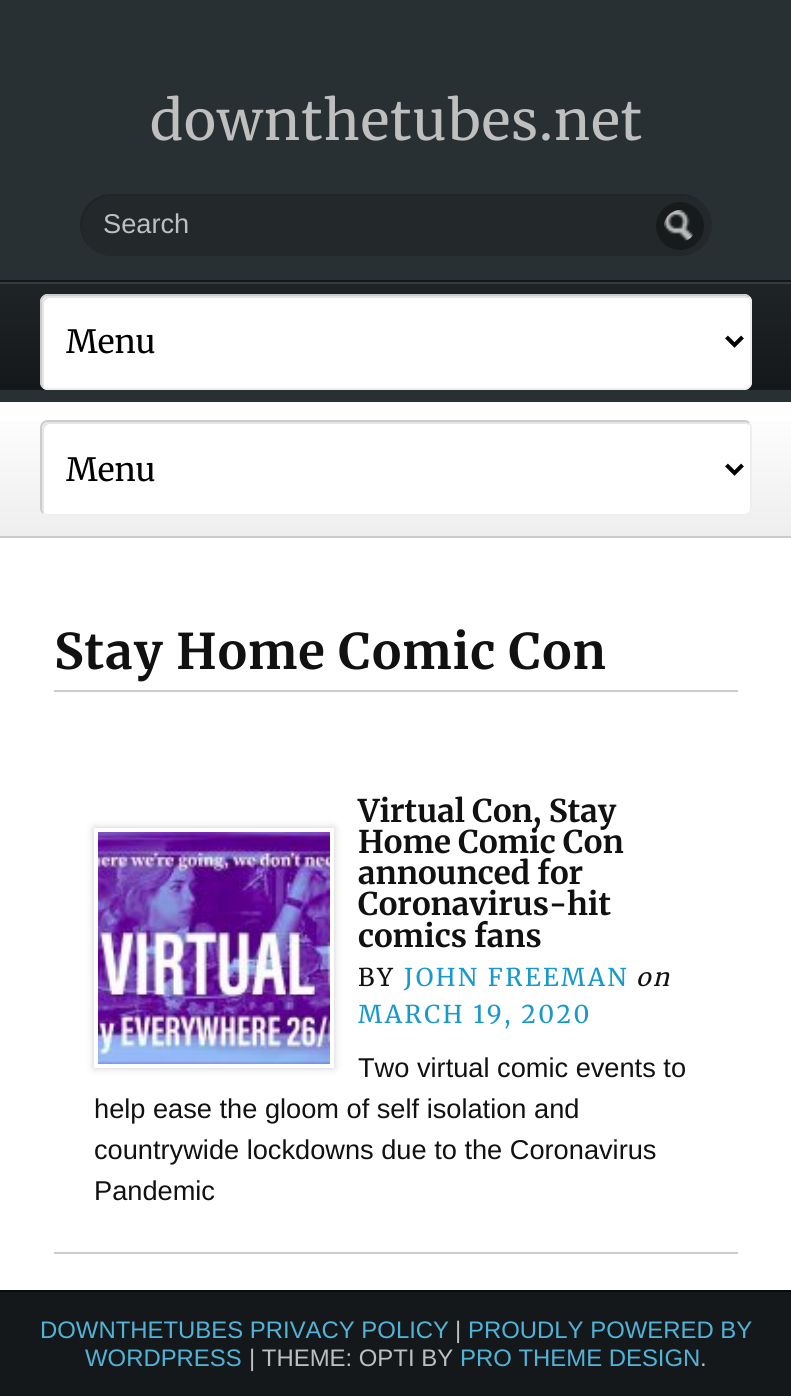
#include <cairo.h>
#include <math.h>
#include <stddef.h>

typedef struct { double x, y; const char *s; } line_t;

static void ink(cairo_t *ctx, unsigned color) {
    cairo_set_source_rgb(ctx, (color >> 16) / 255.0, (color >> 8 & 255) / 255.0, (color & 255) / 255.0);
}

static void write_spaced(cairo_t *ctx, double x, double y, const char *s, double letter, double word) {
    cairo_move_to(ctx, x, y);
    while (*s) {
        char ch[5] = {0};
        int n = 0;
        do ch[n++] = *s++; while ((*s & 0xC0) == 0x80);
        cairo_show_text(ctx, ch);
        cairo_rel_move_to(ctx, letter + word * (*ch == ' '), 0);
    }
}

static void round_path(cairo_t *ctx, double x, double y, double w, double h, double r) {
    cairo_new_sub_path(ctx);
    cairo_arc(ctx, x + w - r, y + h - r, r, 0, M_PI / 2);
    cairo_arc(ctx, x + r, y + h - r, r, M_PI / 2, M_PI);
    cairo_arc(ctx, x + r, y + r, r, M_PI, 1.5 * M_PI);
    cairo_arc(ctx, x + w - r, y + r, r, 1.5 * M_PI, 2 * M_PI);
    cairo_close_path(ctx);
}

static void blur_box(cairo_t *ctx, double x, double y, double w, double h, double r, double blur, double alpha) {
    cairo_push_group_with_content(ctx, CAIRO_CONTENT_ALPHA);
    cairo_set_operator(ctx, CAIRO_OPERATOR_SOURCE);
    for (int i = 15; i >= -15 && fmin(w, h) + blur * i / 3 > 0; i -= 2) {
        double e = blur * i / 6;
        cairo_set_source_rgba(ctx, 0, 0, 0, alpha * erfc((i - 1) / 8.5) / 2);
        round_path(ctx, x - e, y - e, w + 2 * e, h + 2 * e, fmax(0, fmin(r + e + blur * .6, fmin(w, h) / 2 + e)));
        cairo_fill(ctx);
    }
    cairo_pattern_t *soft = cairo_pop_group(ctx);
    cairo_mask(ctx, soft);
    cairo_pattern_destroy(soft);
}

static void paste(cairo_t *ctx, const char *path, double x, double y, double w, double h) {
    cairo_surface_t *image = cairo_image_surface_create_from_png(path);
    cairo_save(ctx);
    cairo_set_source_surface(ctx, image, x, y);
    cairo_rectangle(ctx, x, y, w, h);
    cairo_fill(ctx);
    cairo_restore(ctx);
    cairo_surface_destroy(image);
}

int main(void) {
    cairo_surface_t *surface = cairo_image_surface_create(CAIRO_FORMAT_RGB24, 791, 1398);
    cairo_t *ctx = cairo_create(surface);
    cairo_font_options_t *options = cairo_font_options_create();
    cairo_font_options_set_hint_metrics(options, CAIRO_HINT_METRICS_OFF);
    cairo_font_options_set_hint_style(options, CAIRO_HINT_STYLE_NONE);
    cairo_set_font_options(ctx, options);
    cairo_set_miter_limit(ctx, 4);
    cairo_pattern_t *gradient;
    ink(ctx, 0xFFFFFF);
    cairo_paint(ctx);
    ink(ctx, 0x293033);
    cairo_rectangle(ctx, 0, 0, 791, 402);
    cairo_fill(ctx);
    cairo_select_font_face(ctx, "Merriweather", CAIRO_FONT_SLANT_NORMAL, CAIRO_FONT_WEIGHT_NORMAL);
    cairo_set_font_size(ctx, 54.5);
    ink(ctx, 0xBFBFBF);
    write_spaced(ctx, 150, 140, "downthetubes.net", 1.1, 0);
    ink(ctx, 0x23292B);
    round_path(ctx, 80, 194, 632, 62, 31);
    cairo_fill(ctx);
    cairo_set_source_rgba(ctx, 0, 0, 0, 0.1);
    cairo_new_path(ctx);
    cairo_move_to(ctx, 113, 196);
    cairo_line_to(ctx, 683, 196);
    cairo_curve_to(ctx, 691, 196, 699, 199, 704, 205);
    cairo_curve_to(ctx, 699, 199, 692, 195, 684, 194);
    cairo_line_to(ctx, 111, 194);
    cairo_curve_to(ctx, 82, 194, 69, 230, 91, 248);
    cairo_curve_to(ctx, 72, 229, 86, 196, 113, 196);
    cairo_close_path(ctx);
    cairo_fill(ctx);
    cairo_select_font_face(ctx, "Liberation Sans", CAIRO_FONT_SLANT_NORMAL, CAIRO_FONT_WEIGHT_NORMAL);
    cairo_set_font_size(ctx, 27.2);
    ink(ctx, 0xBFBFBF);
    cairo_move_to(ctx, 103, 233);
    cairo_show_text(ctx, "Search");
    ink(ctx, 0x171B1C);
    cairo_new_path(ctx);
    cairo_arc(ctx, 680, 226, 24, 0, 2 * M_PI);
    cairo_fill(ctx);
    paste(ctx, "media/1.png", 664, 210, 30, 31);
    gradient = cairo_pattern_create_linear(396, 174, 396, 282);
    cairo_pattern_add_color_stop_rgba(gradient, 0, 0.122, 0.141, 0.149, 1);
    cairo_pattern_add_color_stop_rgba(gradient, 1, 0.082, 0.094, 0.102, 1);
    cairo_set_source(ctx, gradient);
    cairo_pattern_destroy(gradient);
    cairo_rectangle(ctx, 0, 280, 791, 2);
    cairo_fill(ctx);
    gradient = cairo_pattern_create_linear(396, 282, 396, 390);
    cairo_pattern_add_color_stop_rgba(gradient, 0, 0.122, 0.141, 0.149, 1);
    cairo_pattern_add_color_stop_rgba(gradient, 1, 0.082, 0.094, 0.102, 1);
    cairo_set_source(ctx, gradient);
    cairo_pattern_destroy(gradient);
    cairo_rectangle(ctx, 0, 284, 791, 106);
    cairo_fill(ctx);
    cairo_save(ctx);
    cairo_rectangle(ctx, 0, 282, 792, 108);
    cairo_clip(ctx);
    ink(ctx, 0x353A3C);
    cairo_set_fill_rule(ctx, CAIRO_FILL_RULE_EVEN_ODD);
    cairo_new_path(ctx);
    cairo_move_to(ctx, -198, 84);
    cairo_line_to(ctx, 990, 84);
    cairo_line_to(ctx, 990, 588);
    cairo_line_to(ctx, -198, 588);
    cairo_close_path(ctx);
    cairo_move_to(ctx, 0, 284);
    cairo_line_to(ctx, 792, 284);
    cairo_curve_to(ctx, 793, 284, 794, 285, 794, 286);
    cairo_line_to(ctx, 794, 394);
    cairo_curve_to(ctx, 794, 395, 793, 396, 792, 396);
    cairo_line_to(ctx, 0, 396);
    cairo_curve_to(ctx, -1, 396, -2, 395, -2, 394);
    cairo_line_to(ctx, -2, 286);
    cairo_curve_to(ctx, -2, 285, -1, 284, 0, 284);
    cairo_close_path(ctx);
    cairo_fill(ctx);
    cairo_restore(ctx);
    ink(ctx, 0xFFFFFF);
    round_path(ctx, 40, 294, 712, 96, 8);
    cairo_fill(ctx);
    ink(ctx, 0xE6E6E6);
    cairo_new_path(ctx);
    cairo_move_to(ctx, 50, 298);
    cairo_line_to(ctx, 746, 298);
    cairo_line_to(ctx, 749, 299);
    cairo_curve_to(ctx, 748, 297, 746, 296, 744, 296);
    cairo_line_to(ctx, 48, 296);
    cairo_curve_to(ctx, 45, 296, 42, 299, 42, 302);
    cairo_line_to(ctx, 42, 382);
    cairo_curve_to(ctx, 42, 384, 43, 386, 45, 387);
    cairo_curve_to(ctx, 44, 386, 44, 385, 44, 384);
    cairo_line_to(ctx, 44, 304);
    cairo_curve_to(ctx, 44, 301, 47, 298, 50, 298);
    cairo_close_path(ctx);
    cairo_fill(ctx);
    cairo_new_path(ctx);
    cairo_move_to(ctx, 749, 297);
    cairo_curve_to(ctx, 750.5, 298.5, 751, 300, 751, 302);
    cairo_line_to(ctx, 751, 382);
    cairo_curve_to(ctx, 751, 384, 750.5, 385.5, 749, 387);
    cairo_curve_to(ctx, 747.5, 388.5, 746, 389, 744, 389);
    cairo_line_to(ctx, 48, 389);
    cairo_curve_to(ctx, 46, 389, 44.5, 388.5, 43, 387);
    ink(ctx, 0xEEEEEE);
    cairo_stroke(ctx);
    cairo_new_path(ctx);
    cairo_move_to(ctx, 43, 387);
    cairo_curve_to(ctx, 41.5, 385.5, 41, 384, 41, 382);
    cairo_line_to(ctx, 41, 302);
    cairo_curve_to(ctx, 41, 300, 41.5, 298.5, 43, 297);
    cairo_curve_to(ctx, 44.5, 295.5, 46, 295, 48, 295);
    cairo_line_to(ctx, 744, 295);
    cairo_curve_to(ctx, 746, 295, 747.5, 295.5, 749, 297);
    ink(ctx, 0xCCCCCC);
    cairo_stroke(ctx);
    cairo_new_path(ctx);
    cairo_move_to(ctx, 726.5, 337);
    cairo_line_to(ctx, 734.5, 345);
    cairo_line_to(ctx, 742.5, 337);
    ink(ctx, 0x000000);
    cairo_set_line_width(ctx, 4);
    cairo_stroke(ctx);
    cairo_select_font_face(ctx, "Merriweather", CAIRO_FONT_SLANT_NORMAL, CAIRO_FONT_WEIGHT_NORMAL);
    cairo_set_font_size(ctx, 32);
    cairo_move_to(ctx, 66, 353);
    cairo_show_text(ctx, "Menu");
    gradient = cairo_pattern_create_linear(396, 402, 396, 536);
    cairo_pattern_add_color_stop_rgba(gradient, 0, 1, 1, 1, 1);
    cairo_pattern_add_color_stop_rgba(gradient, 1, 0.933, 0.933, 0.933, 1);
    cairo_set_source(ctx, gradient);
    cairo_pattern_destroy(gradient);
    cairo_rectangle(ctx, 0, 422, 791, 114);
    cairo_fill(ctx);
    ink(ctx, 0xCCCCCC);
    cairo_rectangle(ctx, 0, 536, 791, 2);
    cairo_fill(ctx);
    ink(ctx, 0xFFFFFF);
    round_path(ctx, 40, 420, 712, 96, 8);
    cairo_fill(ctx);
    ink(ctx, 0xE6E6E6);
    cairo_new_path(ctx);
    cairo_move_to(ctx, 50, 424);
    cairo_line_to(ctx, 746, 424);
    cairo_line_to(ctx, 749, 425);
    cairo_curve_to(ctx, 748, 423, 746, 422, 744, 422);
    cairo_line_to(ctx, 48, 422);
    cairo_curve_to(ctx, 45, 422, 42, 425, 42, 428);
    cairo_line_to(ctx, 42, 508);
    cairo_curve_to(ctx, 42, 510, 43, 512, 45, 513);
    cairo_curve_to(ctx, 44, 512, 44, 511, 44, 510);
    cairo_line_to(ctx, 44, 430);
    cairo_curve_to(ctx, 44, 427, 47, 424, 50, 424);
    cairo_close_path(ctx);
    cairo_fill(ctx);
    cairo_new_path(ctx);
    cairo_move_to(ctx, 749, 423);
    cairo_curve_to(ctx, 750.5, 424.5, 751, 426, 751, 428);
    cairo_line_to(ctx, 751, 508);
    cairo_curve_to(ctx, 751, 510, 750.5, 511.5, 749, 513);
    cairo_curve_to(ctx, 747.5, 514.5, 746, 515, 744, 515);
    cairo_line_to(ctx, 48, 515);
    cairo_curve_to(ctx, 46, 515, 44.5, 514.5, 43, 513);
    ink(ctx, 0xEEEEEE);
    cairo_set_line_width(ctx, 2);
    cairo_stroke(ctx);
    cairo_new_path(ctx);
    cairo_move_to(ctx, 43, 513);
    cairo_curve_to(ctx, 41.5, 511.5, 41, 510, 41, 508);
    cairo_line_to(ctx, 41, 428);
    cairo_curve_to(ctx, 41, 426, 41.5, 424.5, 43, 423);
    cairo_curve_to(ctx, 44.5, 421.5, 46, 421, 48, 421);
    cairo_line_to(ctx, 744, 421);
    cairo_curve_to(ctx, 746, 421, 747.5, 421.5, 749, 423);
    ink(ctx, 0xCCCCCC);
    cairo_stroke(ctx);
    cairo_new_path(ctx);
    cairo_move_to(ctx, 726.5, 465);
    cairo_line_to(ctx, 734.5, 473);
    cairo_line_to(ctx, 742.5, 465);
    ink(ctx, 0x000000);
    cairo_set_line_width(ctx, 4);
    cairo_stroke(ctx);
    cairo_move_to(ctx, 66, 481);
    cairo_show_text(ctx, "Menu");
    ink(ctx, 0xCCCCCC);
    cairo_rectangle(ctx, 54, 690, 684, 2);
    cairo_fill(ctx);
    cairo_select_font_face(ctx, "Merriweather", CAIRO_FONT_SLANT_NORMAL, CAIRO_FONT_WEIGHT_BOLD);
    cairo_set_font_size(ctx, 49);
    ink(ctx, 0x111111);
    write_spaced(ctx, 54, 669, "Stay Home Comic Con", 1, 0);
    ink(ctx, 0xCCCCCC);
    cairo_rectangle(ctx, 54, 1252, 684, 2);
    cairo_fill(ctx);
    cairo_set_font_size(ctx, 31.25);
    ink(ctx, 0x111111);
    {
        static const line_t items[] = {
            {358, 822, "Virtual Con, Stay"},
            {358, 853, "Home Comic Con"},
            {358, 884, "announced for"},
            {358, 915, "Coronavirus-hit"},
            {358, 947, "comics fans"},
        };
        for (size_t i = 0; i < sizeof items / sizeof *items; i++) {
            cairo_move_to(ctx, items[i].x, items[i].y);
            cairo_show_text(ctx, items[i].s);
        }
    }
    cairo_select_font_face(ctx, "Merriweather", CAIRO_FONT_SLANT_NORMAL, CAIRO_FONT_WEIGHT_NORMAL);
    cairo_set_font_size(ctx, 24.5);
    write_spaced(ctx, 358, 986, "BY", 2.5, 0);
    ink(ctx, 0x1899CB);
    write_spaced(ctx, 404, 986, "JOHN FREEMAN", 2.5, 0);
    cairo_select_font_face(ctx, "Merriweather", CAIRO_FONT_SLANT_ITALIC, CAIRO_FONT_WEIGHT_NORMAL);
    ink(ctx, 0x111111);
    write_spaced(ctx, 636, 986, "on", 2.5, 0);
    cairo_select_font_face(ctx, "Merriweather", CAIRO_FONT_SLANT_NORMAL, CAIRO_FONT_WEIGHT_NORMAL);
    ink(ctx, 0x1899CB);
    write_spaced(ctx, 358, 1023, "MARCH 19, 2020", 2.5, 0);
    cairo_select_font_face(ctx, "Liberation Sans", CAIRO_FONT_SLANT_NORMAL, CAIRO_FONT_WEIGHT_NORMAL);
    cairo_set_font_size(ctx, 27.2);
    ink(ctx, 0x111111);
    {
        static const line_t items[] = {
            {358, 1077, "Two virtual comic events to"},
            {94, 1118, "help ease the gloom of self isolation and"},
            {94, 1159, "countrywide lockdowns due to the Coronavirus"},
            {94, 1200, "Pandemic"},
        };
        for (size_t i = 0; i < sizeof items / sizeof *items; i++) {
            cairo_move_to(ctx, items[i].x, items[i].y);
            cairo_show_text(ctx, items[i].s);
        }
    }
    cairo_save(ctx);
    cairo_set_fill_rule(ctx, CAIRO_FILL_RULE_EVEN_ODD);
    cairo_new_path(ctx);
    cairo_move_to(ctx, 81, 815);
    cairo_line_to(ctx, 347, 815);
    cairo_line_to(ctx, 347, 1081);
    cairo_line_to(ctx, 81, 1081);
    cairo_close_path(ctx);
    cairo_move_to(ctx, 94, 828);
    cairo_line_to(ctx, 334, 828);
    cairo_line_to(ctx, 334, 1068);
    cairo_line_to(ctx, 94, 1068);
    cairo_close_path(ctx);
    cairo_clip(ctx);
    ink(ctx, 0x000000);
    blur_box(ctx, 94, 828, 240, 240, 0, 4, 0.2);
    cairo_restore(ctx);
    paste(ctx, "media/2.png", 98, 832, 232, 232);
    ink(ctx, 0x15181A);
    cairo_rectangle(ctx, 0, 1292, 791, 104);
    cairo_fill(ctx);
    ink(ctx, 0x0A0C0D);
    cairo_rectangle(ctx, 0, 1290, 791, 2);
    cairo_fill(ctx);
    cairo_set_font_size(ctx, 23.9);
    ink(ctx, 0x52B3D8);
    cairo_move_to(ctx, 40, 1338);
    cairo_show_text(ctx, "DOWNTHETUBES PRIVACY POLICY");
    ink(ctx, 0xBFBFBF);
    cairo_move_to(ctx, 455, 1338);
    cairo_show_text(ctx, "|");
    ink(ctx, 0x52B3D8);
    cairo_move_to(ctx, 468, 1338);
    cairo_show_text(ctx, "PROUDLY POWERED BY");
    cairo_move_to(ctx, 85, 1366);
    cairo_show_text(ctx, "WORDPRESS");
    ink(ctx, 0xBFBFBF);
    cairo_move_to(ctx, 249, 1366);
    cairo_show_text(ctx, "| THEME: OPTI BY");
    ink(ctx, 0x52B3D8);
    cairo_move_to(ctx, 460, 1366);
    cairo_show_text(ctx, "PRO THEME DESIGN");
    ink(ctx, 0xBFBFBF);
    cairo_move_to(ctx, 700, 1366);
    cairo_show_text(ctx, ".");
    cairo_surface_write_to_png(surface, "image.png");
    cairo_font_options_destroy(options);
    cairo_destroy(ctx);
    cairo_surface_destroy(surface);
    return 0;
}
